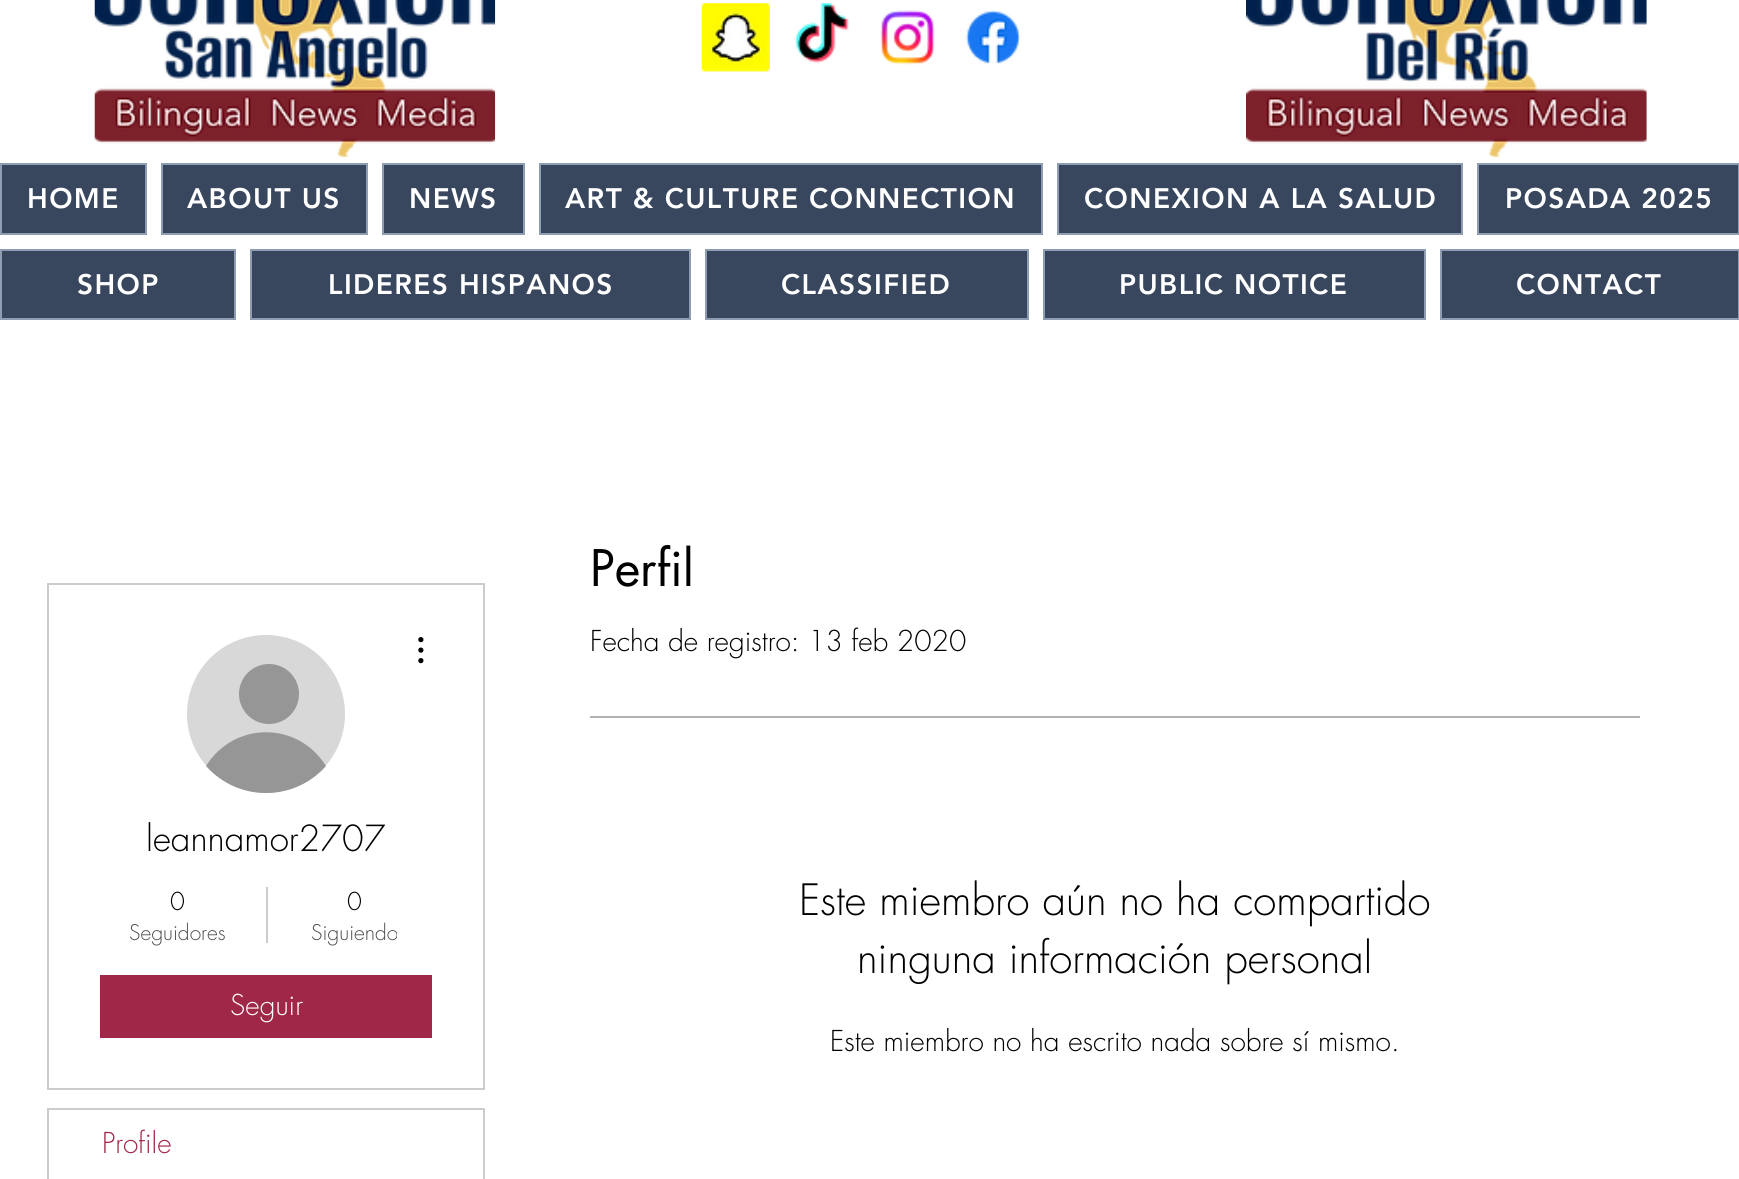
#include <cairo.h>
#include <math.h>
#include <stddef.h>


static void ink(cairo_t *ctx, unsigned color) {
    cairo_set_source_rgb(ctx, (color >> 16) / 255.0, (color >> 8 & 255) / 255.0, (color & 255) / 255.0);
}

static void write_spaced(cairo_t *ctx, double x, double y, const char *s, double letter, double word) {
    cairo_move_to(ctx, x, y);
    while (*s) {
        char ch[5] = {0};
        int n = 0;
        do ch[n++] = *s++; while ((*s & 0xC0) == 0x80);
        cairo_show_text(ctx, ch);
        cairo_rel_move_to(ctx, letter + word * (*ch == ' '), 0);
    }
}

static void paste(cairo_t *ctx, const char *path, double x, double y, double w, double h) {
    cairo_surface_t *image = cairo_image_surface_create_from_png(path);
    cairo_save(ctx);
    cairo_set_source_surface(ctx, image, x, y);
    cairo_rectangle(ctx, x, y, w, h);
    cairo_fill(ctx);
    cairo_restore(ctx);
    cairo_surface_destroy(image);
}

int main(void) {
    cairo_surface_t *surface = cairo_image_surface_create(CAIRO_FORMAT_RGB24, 1739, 1179);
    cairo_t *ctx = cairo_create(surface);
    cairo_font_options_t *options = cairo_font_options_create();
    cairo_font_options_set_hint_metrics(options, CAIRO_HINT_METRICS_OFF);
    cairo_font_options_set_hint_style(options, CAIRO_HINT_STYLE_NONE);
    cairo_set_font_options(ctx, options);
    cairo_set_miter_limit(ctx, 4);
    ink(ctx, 0xFFFFFF);
    cairo_paint(ctx);
    paste(ctx, "media/1.png", 94, 0, 402, 158);
    paste(ctx, "media/2.png", 701, 3, 69, 69);
    paste(ctx, "media/3.png", 794, 3, 55, 61);
    paste(ctx, "media/4.png", 880, 10, 55, 55);
    paste(ctx, "media/5.png", 965, 10, 56, 54);
    paste(ctx, "media/6.png", 1246, 0, 401, 158);
    ink(ctx, 0x39475E);
    cairo_rectangle(ctx, 1, 164, 145, 70);
    cairo_fill_preserve(ctx);
    ink(ctx, 0x8F9DB3);
    cairo_stroke(ctx);
    cairo_select_font_face(ctx, "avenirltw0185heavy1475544 Black", CAIRO_FONT_SLANT_NORMAL, CAIRO_FONT_WEIGHT_NORMAL);
    cairo_set_font_size(ctx, 28);
    ink(ctx, 0xFFFFFF);
    write_spaced(ctx, 27, 208, "HOME", 1.4, 0);
    ink(ctx, 0x39475E);
    cairo_rectangle(ctx, 162, 164, 205, 70);
    cairo_fill_preserve(ctx);
    ink(ctx, 0x8F9DB3);
    cairo_stroke(ctx);
    ink(ctx, 0xFFFFFF);
    write_spaced(ctx, 187, 208, "ABOUT US", 1.4, 0);
    ink(ctx, 0x39475E);
    cairo_rectangle(ctx, 383, 164, 141, 70);
    cairo_fill_preserve(ctx);
    ink(ctx, 0x8F9DB3);
    cairo_stroke(ctx);
    ink(ctx, 0xFFFFFF);
    write_spaced(ctx, 409, 208, "NEWS", 1.4, 0);
    ink(ctx, 0x39475E);
    cairo_rectangle(ctx, 540, 164, 502, 70);
    cairo_fill_preserve(ctx);
    ink(ctx, 0x8F9DB3);
    cairo_stroke(ctx);
    ink(ctx, 0xFFFFFF);
    write_spaced(ctx, 565, 208, "ART & CULTURE CONNECTION", 1.4, 0);
    ink(ctx, 0x39475E);
    cairo_rectangle(ctx, 1058, 164, 404, 70);
    cairo_fill_preserve(ctx);
    ink(ctx, 0x8F9DB3);
    cairo_stroke(ctx);
    ink(ctx, 0xFFFFFF);
    write_spaced(ctx, 1084, 208, "CONEXION A LA SALUD", 1.4, 0);
    ink(ctx, 0x39475E);
    cairo_rectangle(ctx, 1478, 164, 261, 70);
    cairo_fill_preserve(ctx);
    ink(ctx, 0x8F9DB3);
    cairo_stroke(ctx);
    ink(ctx, 0xFFFFFF);
    write_spaced(ctx, 1505, 208, "POSADA 2025", 1.4, 0);
    ink(ctx, 0x39475E);
    cairo_rectangle(ctx, 1, 250, 234, 69);
    cairo_fill_preserve(ctx);
    ink(ctx, 0x8F9DB3);
    cairo_stroke(ctx);
    ink(ctx, 0xFFFFFF);
    write_spaced(ctx, 77, 294, "SHOP", 1.4, 0);
    ink(ctx, 0x39475E);
    cairo_rectangle(ctx, 251, 250, 439, 69);
    cairo_fill_preserve(ctx);
    ink(ctx, 0x8F9DB3);
    cairo_stroke(ctx);
    ink(ctx, 0xFFFFFF);
    write_spaced(ctx, 328, 294, "LIDERES HISPANOS", 1.4, 0);
    ink(ctx, 0x39475E);
    cairo_rectangle(ctx, 706, 250, 322, 69);
    cairo_fill_preserve(ctx);
    ink(ctx, 0x8F9DB3);
    cairo_stroke(ctx);
    ink(ctx, 0xFFFFFF);
    write_spaced(ctx, 781, 294, "CLASSIFIED", 1.4, 0);
    ink(ctx, 0x39475E);
    cairo_rectangle(ctx, 1044, 250, 381, 69);
    cairo_fill_preserve(ctx);
    ink(ctx, 0x8F9DB3);
    cairo_stroke(ctx);
    ink(ctx, 0xFFFFFF);
    write_spaced(ctx, 1119, 294, "PUBLIC NOTICE", 1.4, 0);
    ink(ctx, 0x39475E);
    cairo_rectangle(ctx, 1441, 250, 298, 69);
    cairo_fill_preserve(ctx);
    ink(ctx, 0x8F9DB3);
    cairo_stroke(ctx);
    ink(ctx, 0xFFFFFF);
    write_spaced(ctx, 1516, 294, "CONTACT", 1.4, 0);
    cairo_rectangle(ctx, 48, 584, 436, 505);
    ink(ctx, 0xCCCCCC);
    cairo_stroke(ctx);
    ink(ctx, 0xD8D8D8);
    cairo_arc(ctx, 266, 714, 79, 0, 2 * M_PI);
    cairo_fill(ctx);
    ink(ctx, 0x969696);
    cairo_arc(ctx, 269, 694, 30, 0, 2 * M_PI);
    cairo_fill(ctx);
    cairo_new_path(ctx);
    cairo_move_to(ctx, 326, 766);
    cairo_curve_to(ctx, 294, 802, 238, 802, 206, 766);
    cairo_curve_to(ctx, 234, 721, 298, 721, 326, 766);
    cairo_close_path(ctx);
    cairo_fill(ctx);
    paste(ctx, "media/7.png", 418, 637, 6, 27);
    cairo_select_font_face(ctx, "futura Light", CAIRO_FONT_SLANT_NORMAL, CAIRO_FONT_WEIGHT_NORMAL);
    cairo_set_font_size(ctx, 35);
    ink(ctx, 0x000000);
    cairo_move_to(ctx, 146, 851);
    cairo_show_text(ctx, "leannamor2707");
    cairo_set_font_size(ctx, 24);
    cairo_move_to(ctx, 170, 910);
    cairo_show_text(ctx, "0");
    cairo_set_font_size(ctx, 21);
    ink(ctx, 0x4D4D4D);
    cairo_move_to(ctx, 129, 940);
    cairo_show_text(ctx, "Seguidores");
    ink(ctx, 0xCCCCCC);
    cairo_rectangle(ctx, 266, 887, 2, 56);
    cairo_fill(ctx);
    cairo_set_font_size(ctx, 24);
    ink(ctx, 0x000000);
    cairo_move_to(ctx, 347, 910);
    cairo_show_text(ctx, "0");
    cairo_save(ctx);
    cairo_rectangle(ctx, 312, 919, 85, 28);
    cairo_clip(ctx);
    cairo_set_font_size(ctx, 21);
    ink(ctx, 0x4D4D4D);
    cairo_move_to(ctx, 311, 940);
    cairo_show_text(ctx, "Siguiendo");
    cairo_restore(ctx);
    ink(ctx, 0x9F2747);
    cairo_rectangle(ctx, 100, 975, 332, 63);
    cairo_fill(ctx);
    cairo_set_font_size(ctx, 28);
    ink(ctx, 0xFFFFFF);
    cairo_move_to(ctx, 230, 1015);
    cairo_show_text(ctx, "Seguir");
    cairo_rectangle(ctx, 48, 1109, 436, 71);
    ink(ctx, 0xCCCCCC);
    cairo_stroke(ctx);
    ink(ctx, 0x9F2747);
    cairo_move_to(ctx, 102, 1153);
    cairo_show_text(ctx, "Profile");
    cairo_select_font_face(ctx, "futura", CAIRO_FONT_SLANT_NORMAL, CAIRO_FONT_WEIGHT_NORMAL);
    cairo_set_font_size(ctx, 49);
    ink(ctx, 0x000000);
    cairo_move_to(ctx, 590, 586);
    cairo_show_text(ctx, "Perfil");
    cairo_select_font_face(ctx, "futura Light", CAIRO_FONT_SLANT_NORMAL, CAIRO_FONT_WEIGHT_NORMAL);
    cairo_set_font_size(ctx, 28);
    cairo_move_to(ctx, 590, 651);
    cairo_show_text(ctx, "Fecha de registro: 13 feb 2020");
    ink(ctx, 0xB3B3B3);
    cairo_rectangle(ctx, 590, 716, 1050, 2);
    cairo_fill(ctx);
    cairo_set_font_size(ctx, 42);
    ink(ctx, 0x000000);
    cairo_move_to(ctx, 799, 915);
    cairo_show_text(ctx, "Este miembro aún no ha compartido");
    cairo_move_to(ctx, 857, 973);
    cairo_show_text(ctx, "ninguna información personal");
    cairo_set_font_size(ctx, 28);
    cairo_move_to(ctx, 830, 1051);
    cairo_show_text(ctx, "Este miembro no ha escrito nada sobre sí mismo.");
    cairo_surface_write_to_png(surface, "image.png");
    cairo_font_options_destroy(options);
    cairo_destroy(ctx);
    cairo_surface_destroy(surface);
    return 0;
}
